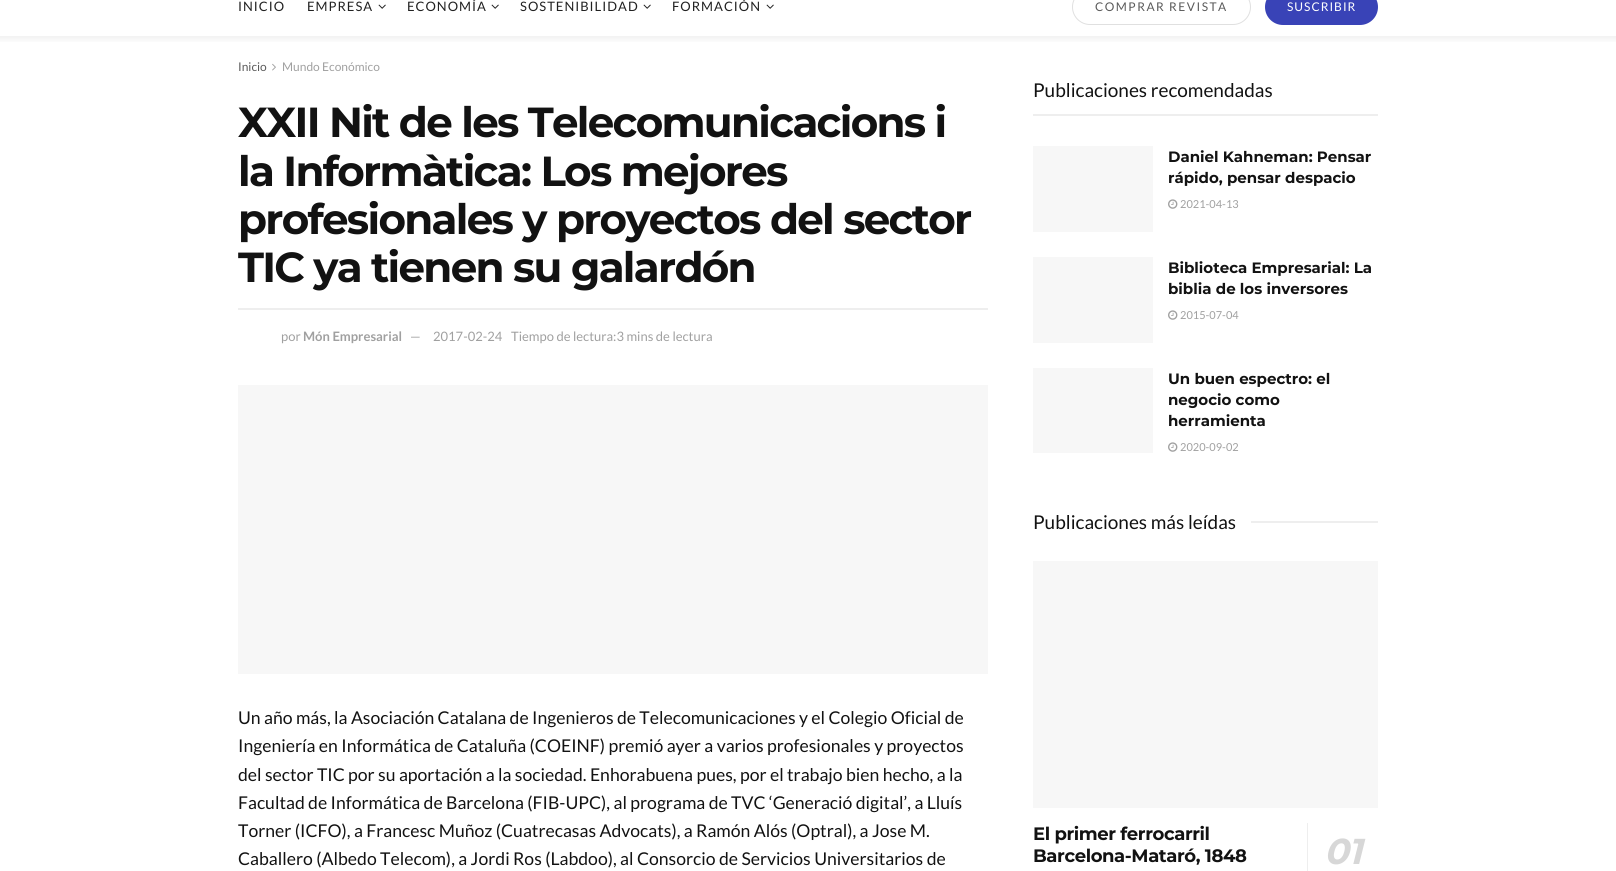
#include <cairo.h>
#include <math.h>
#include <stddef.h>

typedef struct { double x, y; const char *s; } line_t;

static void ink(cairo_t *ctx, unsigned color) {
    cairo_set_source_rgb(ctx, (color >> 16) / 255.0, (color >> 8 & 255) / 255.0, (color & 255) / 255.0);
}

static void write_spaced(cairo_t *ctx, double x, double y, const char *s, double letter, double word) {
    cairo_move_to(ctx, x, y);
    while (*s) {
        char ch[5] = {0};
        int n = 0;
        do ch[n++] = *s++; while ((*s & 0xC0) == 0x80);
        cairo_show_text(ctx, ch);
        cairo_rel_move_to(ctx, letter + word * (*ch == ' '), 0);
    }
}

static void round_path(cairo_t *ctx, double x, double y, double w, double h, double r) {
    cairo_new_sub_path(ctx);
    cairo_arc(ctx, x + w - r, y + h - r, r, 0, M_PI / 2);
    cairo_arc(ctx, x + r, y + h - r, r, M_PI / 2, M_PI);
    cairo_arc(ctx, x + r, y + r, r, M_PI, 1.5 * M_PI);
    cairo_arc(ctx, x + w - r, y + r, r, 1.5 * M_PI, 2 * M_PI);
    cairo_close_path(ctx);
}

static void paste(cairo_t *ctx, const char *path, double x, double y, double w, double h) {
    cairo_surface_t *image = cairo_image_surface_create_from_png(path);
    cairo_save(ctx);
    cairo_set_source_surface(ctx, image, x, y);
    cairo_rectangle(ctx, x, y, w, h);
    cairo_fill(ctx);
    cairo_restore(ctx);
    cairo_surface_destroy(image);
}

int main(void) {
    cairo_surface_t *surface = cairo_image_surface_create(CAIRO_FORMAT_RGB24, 1616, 871);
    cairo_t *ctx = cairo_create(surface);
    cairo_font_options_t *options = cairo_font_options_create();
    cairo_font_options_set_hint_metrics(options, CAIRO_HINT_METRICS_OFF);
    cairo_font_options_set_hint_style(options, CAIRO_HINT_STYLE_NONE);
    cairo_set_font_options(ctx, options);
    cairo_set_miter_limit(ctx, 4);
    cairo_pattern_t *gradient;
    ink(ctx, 0xFFFFFF);
    cairo_paint(ctx);
    cairo_select_font_face(ctx, "Lato", CAIRO_FONT_SLANT_NORMAL, CAIRO_FONT_WEIGHT_NORMAL);
    cairo_set_font_size(ctx, 13);
    ink(ctx, 0x212121);
    write_spaced(ctx, 238, 11, "INICIO", 1, 0);
    write_spaced(ctx, 307, 11, "EMPRESA", 1, 0);
    paste(ctx, "media/1.png", 378, 4, 8, 5);
    write_spaced(ctx, 407, 11, "ECONOMÍA", 1, 0);
    paste(ctx, "media/1.png", 491, 4, 8, 5);
    write_spaced(ctx, 520, 11, "SOSTENIBILIDAD", 1, 0);
    paste(ctx, "media/1.png", 643, 4, 8, 5);
    write_spaced(ctx, 672, 11, "FORMACIÓN", 1, 0);
    paste(ctx, "media/1.png", 766, 4, 8, 5);
    round_path(ctx, 1072.5, -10.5, 178, 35, 17.5);
    ink(ctx, 0xE0E0E0);
    cairo_set_line_width(ctx, 1);
    cairo_stroke(ctx);
    cairo_set_font_size(ctx, 12);
    ink(ctx, 0x5A5A5A);
    write_spaced(ctx, 1095, 11, "COMPRAR REVISTA", 1.5, 0);
    ink(ctx, 0x3943B7);
    round_path(ctx, 1265, -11, 113, 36, 18);
    cairo_fill(ctx);
    ink(ctx, 0xFFFFFF);
    write_spaced(ctx, 1287, 11, "SUSCRIBIR", 1, 0);
    gradient = cairo_pattern_create_linear(808, 36, 808, 44);
    cairo_pattern_add_color_stop_rgba(gradient, 0, 0.949, 0.949, 0.949, 1);
    cairo_pattern_add_color_stop_rgba(gradient, 1, 1, 1, 1, 1);
    cairo_set_source(ctx, gradient);
    cairo_pattern_destroy(gradient);
    cairo_rectangle(ctx, 0, 36, 1616, 6);
    cairo_fill(ctx);
    ink(ctx, 0x5A5A5A);
    cairo_move_to(ctx, 238, 71);
    cairo_show_text(ctx, "Inicio");
    paste(ctx, "media/2.png", 272, 63, 4, 8);
    ink(ctx, 0xA0A0A0);
    cairo_move_to(ctx, 282, 71);
    cairo_show_text(ctx, "Mundo Económico");
    cairo_select_font_face(ctx, "Montserrat", CAIRO_FONT_SLANT_NORMAL, CAIRO_FONT_WEIGHT_BOLD);
    cairo_set_font_size(ctx, 42);
    ink(ctx, 0x121212);
    {
        static const line_t items[] = {
            {238, 137, "XXII Nit de les Telecomunicacions i"},
            {238, 186, "la Informàtica: Los mejores"},
            {238, 234, "profesionales y proyectos del sector"},
            {238, 282, "TIC ya tienen su galardón"},
        };
        for (size_t i = 0; i < sizeof items / sizeof *items; i++) {
            write_spaced(ctx, items[i].x, items[i].y, items[i].s, -1.7, 0);
        }
    }
    ink(ctx, 0xEEEEEE);
    cairo_rectangle(ctx, 238, 308, 750, 2);
    cairo_fill(ctx);
    cairo_select_font_face(ctx, "Lato", CAIRO_FONT_SLANT_NORMAL, CAIRO_FONT_WEIGHT_NORMAL);
    cairo_set_font_size(ctx, 13);
    ink(ctx, 0xA0A0A0);
    cairo_move_to(ctx, 281, 341);
    cairo_show_text(ctx, "por");
    cairo_select_font_face(ctx, "Lato", CAIRO_FONT_SLANT_NORMAL, CAIRO_FONT_WEIGHT_BOLD);
    cairo_move_to(ctx, 303, 341);
    cairo_show_text(ctx, "Món Empresarial");
    cairo_select_font_face(ctx, "Lato", CAIRO_FONT_SLANT_NORMAL, CAIRO_FONT_WEIGHT_NORMAL);
    {
        static const line_t items[] = {
            {410, 341, "—"},
            {433, 341, "2017-02-24"},
            {511, 341, "Tiempo de lectura:3 mins de lectura"},
        };
        for (size_t i = 0; i < sizeof items / sizeof *items; i++) {
            cairo_move_to(ctx, items[i].x, items[i].y);
            cairo_show_text(ctx, items[i].s);
        }
    }
    ink(ctx, 0xF7F7F7);
    cairo_rectangle(ctx, 238, 385, 750, 289);
    cairo_fill(ctx);
    cairo_set_font_size(ctx, 17.6);
    ink(ctx, 0x121212);
    {
        static const line_t items[] = {
            {238, 724, "Un año más, la Asociación Catalana de Ingenieros de Telecomunicaciones y el Colegio Oficial de"},
            {238, 752, "Ingeniería en Informática de Cataluña (COEINF) premió ayer a varios profesionales y proyectos"},
            {238, 781, "del sector TIC por su aportación a la sociedad. Enhorabuena pues, por el trabajo bien hecho, a la"},
            {238, 809, "Facultad de Informática de Barcelona (FIB-UPC), al programa de TVC ‘Generació digital’, a Lluís"},
            {238, 837, "Torner (ICFO), a Francesc Muñoz (Cuatrecasas Advocats), a Ramón Alós (Optral), a Jose M."},
            {238, 865, "Caballero (Albedo Telecom), a Jordi Ros (Labdoo), al Consorcio de Servicios Universitarios de"},
        };
        for (size_t i = 0; i < sizeof items / sizeof *items; i++) {
            cairo_move_to(ctx, items[i].x, items[i].y);
            cairo_show_text(ctx, items[i].s);
        }
    }
    ink(ctx, 0xEEEEEE);
    cairo_rectangle(ctx, 1033, 114, 345, 2);
    cairo_fill(ctx);
    cairo_set_font_size(ctx, 19);
    ink(ctx, 0x121212);
    cairo_move_to(ctx, 1033, 97);
    cairo_show_text(ctx, "Publicaciones recomendadas");
    ink(ctx, 0xF7F7F7);
    cairo_rectangle(ctx, 1033, 146, 120, 86);
    cairo_fill(ctx);
    cairo_select_font_face(ctx, "Montserrat", CAIRO_FONT_SLANT_NORMAL, CAIRO_FONT_WEIGHT_BOLD);
    cairo_set_font_size(ctx, 15);
    ink(ctx, 0x121212);
    cairo_move_to(ctx, 1168, 162);
    cairo_show_text(ctx, "Daniel Kahneman: Pensar");
    cairo_move_to(ctx, 1168, 183);
    cairo_show_text(ctx, "rápido, pensar despacio");
    paste(ctx, "media/3.png", 1168, 199, 10, 10);
    cairo_select_font_face(ctx, "Lato", CAIRO_FONT_SLANT_NORMAL, CAIRO_FONT_WEIGHT_NORMAL);
    cairo_set_font_size(ctx, 11);
    ink(ctx, 0xA0A0A0);
    cairo_move_to(ctx, 1180, 208);
    cairo_show_text(ctx, "2021-04-13");
    ink(ctx, 0xF7F7F7);
    cairo_rectangle(ctx, 1033, 257, 120, 86);
    cairo_fill(ctx);
    cairo_select_font_face(ctx, "Montserrat", CAIRO_FONT_SLANT_NORMAL, CAIRO_FONT_WEIGHT_BOLD);
    cairo_set_font_size(ctx, 15);
    ink(ctx, 0x121212);
    cairo_move_to(ctx, 1168, 273);
    cairo_show_text(ctx, "Biblioteca Empresarial: La");
    cairo_move_to(ctx, 1168, 294);
    cairo_show_text(ctx, "biblia de los inversores");
    paste(ctx, "media/3.png", 1168, 310, 10, 10);
    cairo_select_font_face(ctx, "Lato", CAIRO_FONT_SLANT_NORMAL, CAIRO_FONT_WEIGHT_NORMAL);
    cairo_set_font_size(ctx, 11);
    ink(ctx, 0xA0A0A0);
    cairo_move_to(ctx, 1180, 319);
    cairo_show_text(ctx, "2015-07-04");
    ink(ctx, 0xF7F7F7);
    cairo_rectangle(ctx, 1033, 368, 120, 85);
    cairo_fill(ctx);
    cairo_select_font_face(ctx, "Montserrat", CAIRO_FONT_SLANT_NORMAL, CAIRO_FONT_WEIGHT_BOLD);
    cairo_set_font_size(ctx, 15);
    ink(ctx, 0x121212);
    {
        static const line_t items[] = {
            {1168, 384, "Un buen espectro: el"},
            {1168, 405, "negocio como"},
            {1168, 426, "herramienta"},
        };
        for (size_t i = 0; i < sizeof items / sizeof *items; i++) {
            cairo_move_to(ctx, items[i].x, items[i].y);
            cairo_show_text(ctx, items[i].s);
        }
    }
    paste(ctx, "media/3.png", 1168, 442, 10, 10);
    cairo_select_font_face(ctx, "Lato", CAIRO_FONT_SLANT_NORMAL, CAIRO_FONT_WEIGHT_NORMAL);
    cairo_set_font_size(ctx, 11);
    ink(ctx, 0xA0A0A0);
    cairo_move_to(ctx, 1180, 451);
    cairo_show_text(ctx, "2020-09-02");
    cairo_set_font_size(ctx, 19);
    ink(ctx, 0x121212);
    cairo_move_to(ctx, 1033, 529);
    cairo_show_text(ctx, "Publicaciones más leídas");
    ink(ctx, 0xEEEEEE);
    cairo_rectangle(ctx, 1251, 521, 127, 2);
    cairo_fill(ctx);
    ink(ctx, 0xF7F7F7);
    cairo_rectangle(ctx, 1033, 561, 345, 247);
    cairo_fill(ctx);
    cairo_select_font_face(ctx, "Montserrat", CAIRO_FONT_SLANT_NORMAL, CAIRO_FONT_WEIGHT_BOLD);
    cairo_set_font_size(ctx, 18);
    ink(ctx, 0x121212);
    write_spaced(ctx, 1033, 840, "El primer ferrocarril", -0.4, 0);
    write_spaced(ctx, 1033, 862, "Barcelona-Mataró, 1848", -0.4, 0);
    ink(ctx, 0xEEEEEE);
    cairo_rectangle(ctx, 1307, 823, 1, 48);
    cairo_fill(ctx);
    cairo_select_font_face(ctx, "Montserrat", CAIRO_FONT_SLANT_ITALIC, CAIRO_FONT_WEIGHT_BOLD);
    cairo_set_font_size(ctx, 36);
    ink(ctx, 0xD7D7D7);
    write_spaced(ctx, 1324, 864, "01", -0.4, 0);
    cairo_surface_write_to_png(surface, "image.png");
    cairo_font_options_destroy(options);
    cairo_destroy(ctx);
    cairo_surface_destroy(surface);
    return 0;
}
